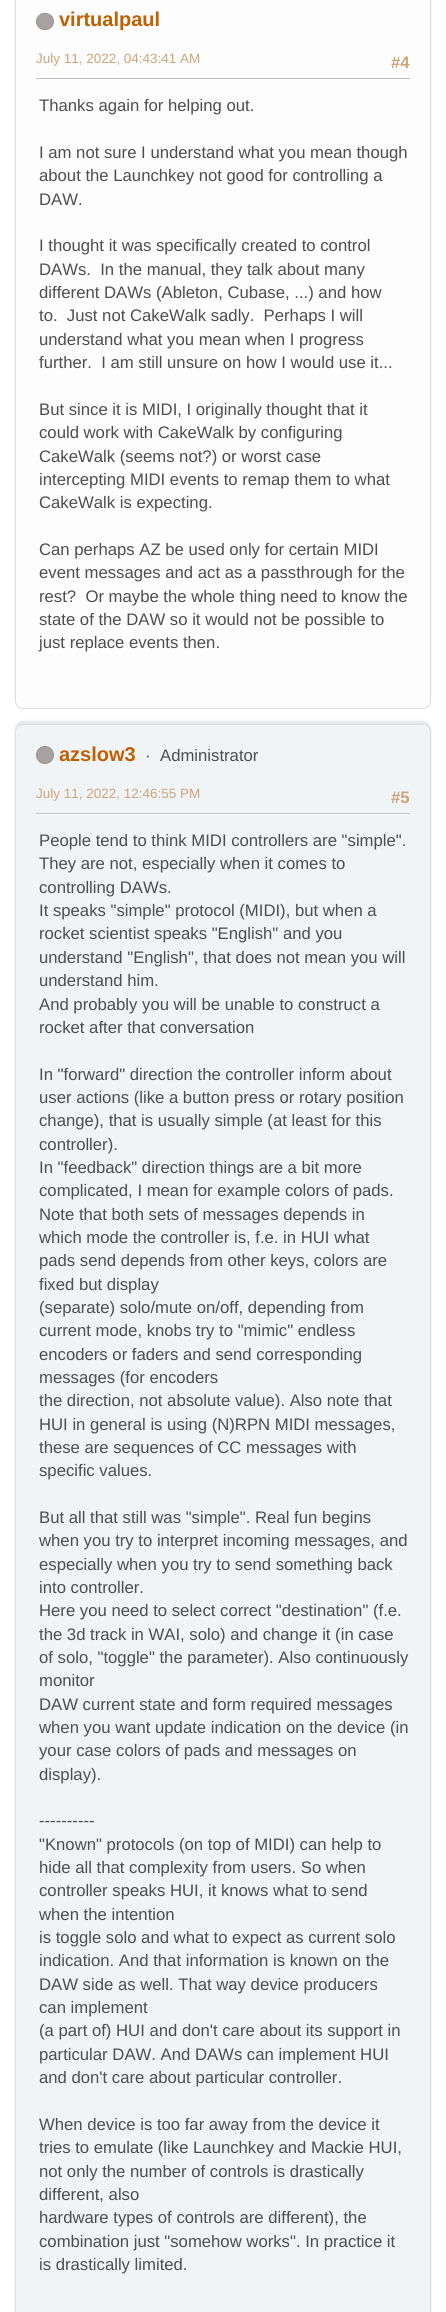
#include <cairo.h>
#include <math.h>
#include <stddef.h>

typedef struct { double x, y; const char *s; } line_t;

static void ink(cairo_t *ctx, unsigned color) {
    cairo_set_source_rgb(ctx, (color >> 16) / 255.0, (color >> 8 & 255) / 255.0, (color & 255) / 255.0);
}

static void round_path(cairo_t *ctx, double x, double y, double w, double h, double r) {
    cairo_new_sub_path(ctx);
    cairo_arc(ctx, x + w - r, y + h - r, r, 0, M_PI / 2);
    cairo_arc(ctx, x + r, y + h - r, r, M_PI / 2, M_PI);
    cairo_arc(ctx, x + r, y + r, r, M_PI, 1.5 * M_PI);
    cairo_arc(ctx, x + w - r, y + r, r, 1.5 * M_PI, 2 * M_PI);
    cairo_close_path(ctx);
}

static void blur_box(cairo_t *ctx, double x, double y, double w, double h, double r, double blur, double alpha) {
    cairo_push_group_with_content(ctx, CAIRO_CONTENT_ALPHA);
    cairo_set_operator(ctx, CAIRO_OPERATOR_SOURCE);
    for (int i = 15; i >= -15 && fmin(w, h) + blur * i / 3 > 0; i -= 2) {
        double e = blur * i / 6;
        cairo_set_source_rgba(ctx, 0, 0, 0, alpha * erfc((i - 1) / 8.5) / 2);
        round_path(ctx, x - e, y - e, w + 2 * e, h + 2 * e, fmax(0, fmin(r + e + blur * .6, fmin(w, h) / 2 + e)));
        cairo_fill(ctx);
    }
    cairo_pattern_t *soft = cairo_pop_group(ctx);
    cairo_mask(ctx, soft);
    cairo_pattern_destroy(soft);
}

int main(void) {
    cairo_surface_t *surface = cairo_image_surface_create(CAIRO_FORMAT_RGB24, 446, 2312);
    cairo_t *ctx = cairo_create(surface);
    cairo_font_options_t *options = cairo_font_options_create();
    cairo_font_options_set_hint_metrics(options, CAIRO_HINT_METRICS_OFF);
    cairo_font_options_set_hint_style(options, CAIRO_HINT_STYLE_NONE);
    cairo_set_font_options(ctx, options);
    cairo_set_miter_limit(ctx, 4);
    ink(ctx, 0xFFFFFF);
    cairo_paint(ctx);
    ink(ctx, 0x000000);
    blur_box(ctx, 15, -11, 416, 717, 8, 1, 0.1);
    ink(ctx, 0xFDFDFD);
    round_path(ctx, 15.5, -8.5, 415, 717, 7.5);
    cairo_fill_preserve(ctx);
    ink(ctx, 0xDDDDDD);
    cairo_set_line_width(ctx, 1);
    cairo_stroke(ctx);
    ink(ctx, 0xA7A2A2);
    round_path(ctx, 36.5, 13.5, 17, 16, 8);
    cairo_fill_preserve(ctx);
    ink(ctx, 0x969292);
    cairo_stroke(ctx);
    cairo_select_font_face(ctx, "Liberation Sans", CAIRO_FONT_SLANT_NORMAL, CAIRO_FONT_WEIGHT_BOLD);
    cairo_set_font_size(ctx, 20);
    ink(ctx, 0xC06002);
    cairo_move_to(ctx, 59, 26);
    cairo_show_text(ctx, "virtualpaul");
    cairo_select_font_face(ctx, "Liberation Sans", CAIRO_FONT_SLANT_NORMAL, CAIRO_FONT_WEIGHT_NORMAL);
    cairo_set_font_size(ctx, 13.5);
    ink(ctx, 0xCDA47B);
    cairo_move_to(ctx, 36, 63);
    cairo_show_text(ctx, "July 11, 2022, 04:43:41 AM");
    cairo_select_font_face(ctx, "Liberation Sans", CAIRO_FONT_SLANT_NORMAL, CAIRO_FONT_WEIGHT_BOLD);
    cairo_set_font_size(ctx, 16.7);
    cairo_move_to(ctx, 391, 68);
    cairo_show_text(ctx, "#4");
    ink(ctx, 0xBFBFBF);
    cairo_rectangle(ctx, 36, 78, 374, 1);
    cairo_fill(ctx);
    cairo_select_font_face(ctx, "Liberation Sans", CAIRO_FONT_SLANT_NORMAL, CAIRO_FONT_WEIGHT_NORMAL);
    ink(ctx, 0x4D4D4D);
    {
        static const line_t items[] = {
            {39, 111, "Thanks again for helping out."},
            {39, 158, "I am not sure I understand what you mean though"},
            {39, 181, "about the Launchkey not good for controlling a"},
            {39, 205, "DAW."},
            {39, 251, "I thought it was specifically created to control"},
            {39, 275, "DAWs.  In the manual, they talk about many"},
            {39, 298, "different DAWs (Ableton, Cubase, ...) and how"},
            {39, 321, "to.  Just not CakeWalk sadly.  Perhaps I will"},
            {39, 345, "understand what you mean when I progress"},
            {39, 368, "further.  I am still unsure on how I would use it..."},
            {39, 415, "But since it is MIDI, I originally thought that it"},
            {39, 438, "could work with CakeWalk by configuring"},
            {39, 462, "CakeWalk (seems not?) or worst case"},
            {39, 485, "intercepting MIDI events to remap them to what"},
            {39, 508, "CakeWalk is expecting."},
            {39, 555, "Can perhaps AZ be used only for certain MIDI"},
            {39, 578, "event messages and act as a passthrough for the"},
            {39, 602, "rest?  Or maybe the whole thing need to know the"},
            {39, 625, "state of the DAW so it would not be possible to"},
            {39, 648, "just replace events then."},
        };
        for (size_t i = 0; i < sizeof items / sizeof *items; i++) {
            cairo_move_to(ctx, items[i].x, items[i].y);
            cairo_show_text(ctx, items[i].s);
        }
    }
    ink(ctx, 0x000000);
    blur_box(ctx, 15, 721, 416, 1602, 8, 1, 0.1);
    ink(ctx, 0xF0F4F7);
    round_path(ctx, 15.5, 724.5, 415, 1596, 7.5);
    cairo_fill_preserve(ctx);
    ink(ctx, 0xDDDDDD);
    cairo_stroke(ctx);
    ink(ctx, 0xA7A2A2);
    cairo_arc(ctx, 45, 755, 8.5, 0, 2 * M_PI);
    cairo_fill_preserve(ctx);
    ink(ctx, 0x969292);
    cairo_stroke(ctx);
    cairo_select_font_face(ctx, "Liberation Sans", CAIRO_FONT_SLANT_NORMAL, CAIRO_FONT_WEIGHT_BOLD);
    cairo_set_font_size(ctx, 20);
    ink(ctx, 0xC06002);
    cairo_move_to(ctx, 59, 761);
    cairo_show_text(ctx, "azslow3");
    cairo_select_font_face(ctx, "Liberation Sans", CAIRO_FONT_SLANT_NORMAL, CAIRO_FONT_WEIGHT_NORMAL);
    cairo_set_font_size(ctx, 16.7);
    ink(ctx, 0x4D4D4D);
    cairo_move_to(ctx, 145, 761);
    cairo_show_text(ctx, "·");
    cairo_move_to(ctx, 160, 761);
    cairo_show_text(ctx, "Administrator");
    cairo_set_font_size(ctx, 13.5);
    ink(ctx, 0xCDA47B);
    cairo_move_to(ctx, 36, 798);
    cairo_show_text(ctx, "July 11, 2022, 12:46:55 PM");
    cairo_select_font_face(ctx, "Liberation Sans", CAIRO_FONT_SLANT_NORMAL, CAIRO_FONT_WEIGHT_BOLD);
    cairo_set_font_size(ctx, 16.7);
    cairo_move_to(ctx, 391, 803);
    cairo_show_text(ctx, "#5");
    ink(ctx, 0xFFFFFF);
    cairo_rectangle(ctx, 36, 814, 374, 1);
    cairo_fill(ctx);
    ink(ctx, 0xBFBFBF);
    cairo_rectangle(ctx, 36, 813, 374, 1);
    cairo_fill(ctx);
    cairo_select_font_face(ctx, "Liberation Sans", CAIRO_FONT_SLANT_NORMAL, CAIRO_FONT_WEIGHT_NORMAL);
    ink(ctx, 0x4D4D4D);
    {
        static const line_t items[] = {
            {39, 846, "People tend to think MIDI controllers are \"simple\"."},
            {39, 869, "They are not, especially when it comes to"},
            {39, 893, "controlling DAWs."},
            {39, 916, "It speaks \"simple\" protocol (MIDI), but when a"},
            {39, 939, "rocket scientist speaks \"English\" and you"},
            {39, 963, "understand \"English\", that does not mean you will"},
            {39, 986, "understand him."},
            {39, 1010, "And probably you will be unable to construct a"},
            {39, 1033, "rocket after that conversation"},
            {39, 1080, "In \"forward\" direction the controller inform about"},
            {39, 1103, "user actions (like a button press or rotary position"},
            {39, 1126, "change), that is usually simple (at least for this"},
            {39, 1150, "controller)."},
            {39, 1173, "In \"feedback\" direction things are a bit more"},
            {39, 1196, "complicated, I mean for example colors of pads."},
            {39, 1220, "Note that both sets of messages depends in"},
            {39, 1243, "which mode the controller is, f.e. in HUI what"},
            {39, 1266, "pads send depends from other keys, colors are"},
            {39, 1290, "fixed but display"},
            {39, 1313, "(separate) solo/mute on/off, depending from"},
            {39, 1336, "current mode, knobs try to \"mimic\" endless"},
            {39, 1360, "encoders or faders and send corresponding"},
            {39, 1383, "messages (for encoders"},
            {39, 1406, "the direction, not absolute value). Also note that"},
            {39, 1430, "HUI in general is using (N)RPN MIDI messages,"},
            {39, 1453, "these are sequences of CC messages with"},
            {39, 1476, "specific values."},
            {39, 1523, "But all that still was \"simple\". Real fun begins"},
            {39, 1546, "when you try to interpret incoming messages, and"},
            {39, 1570, "especially when you try to send something back"},
            {39, 1593, "into controller."},
            {39, 1616, "Here you need to select correct \"destination\" (f.e."},
            {39, 1640, "the 3d track in WAI, solo) and change it (in case"},
            {39, 1663, "of solo, \"toggle\" the parameter). Also continuously"},
            {39, 1686, "monitor"},
            {39, 1710, "DAW current state and form required messages"},
            {39, 1733, "when you want update indication on the device (in"},
            {39, 1756, "your case colors of pads and messages on"},
            {39, 1780, "display)."},
            {39, 1826, "----------"},
            {39, 1850, "\"Known\" protocols (on top of MIDI) can help to"},
            {39, 1873, "hide all that complexity from users. So when"},
            {39, 1896, "controller speaks HUI, it knows what to send"},
            {39, 1920, "when the intention"},
            {39, 1943, "is toggle solo and what to expect as current solo"},
            {39, 1966, "indication. And that information is known on the"},
            {39, 1990, "DAW side as well. That way device producers"},
            {39, 2013, "can implement"},
            {39, 2036, "(a part of) HUI and don't care about its support in"},
            {39, 2060, "particular DAW. And DAWs can implement HUI"},
            {39, 2083, "and don't care about particular controller."},
            {39, 2130, "When device is too far away from the device it"},
            {39, 2153, "tries to emulate (like Launchkey and Mackie HUI,"},
            {39, 2177, "not only the number of controls is drastically"},
            {39, 2200, "different, also"},
            {39, 2223, "hardware types of controls are different), the"},
            {39, 2247, "combination just \"somehow works\". In practice it"},
            {39, 2270, "is drastically limited."},
        };
        for (size_t i = 0; i < sizeof items / sizeof *items; i++) {
            cairo_move_to(ctx, items[i].x, items[i].y);
            cairo_show_text(ctx, items[i].s);
        }
    }
    cairo_surface_write_to_png(surface, "image.png");
    cairo_font_options_destroy(options);
    cairo_destroy(ctx);
    cairo_surface_destroy(surface);
    return 0;
}
